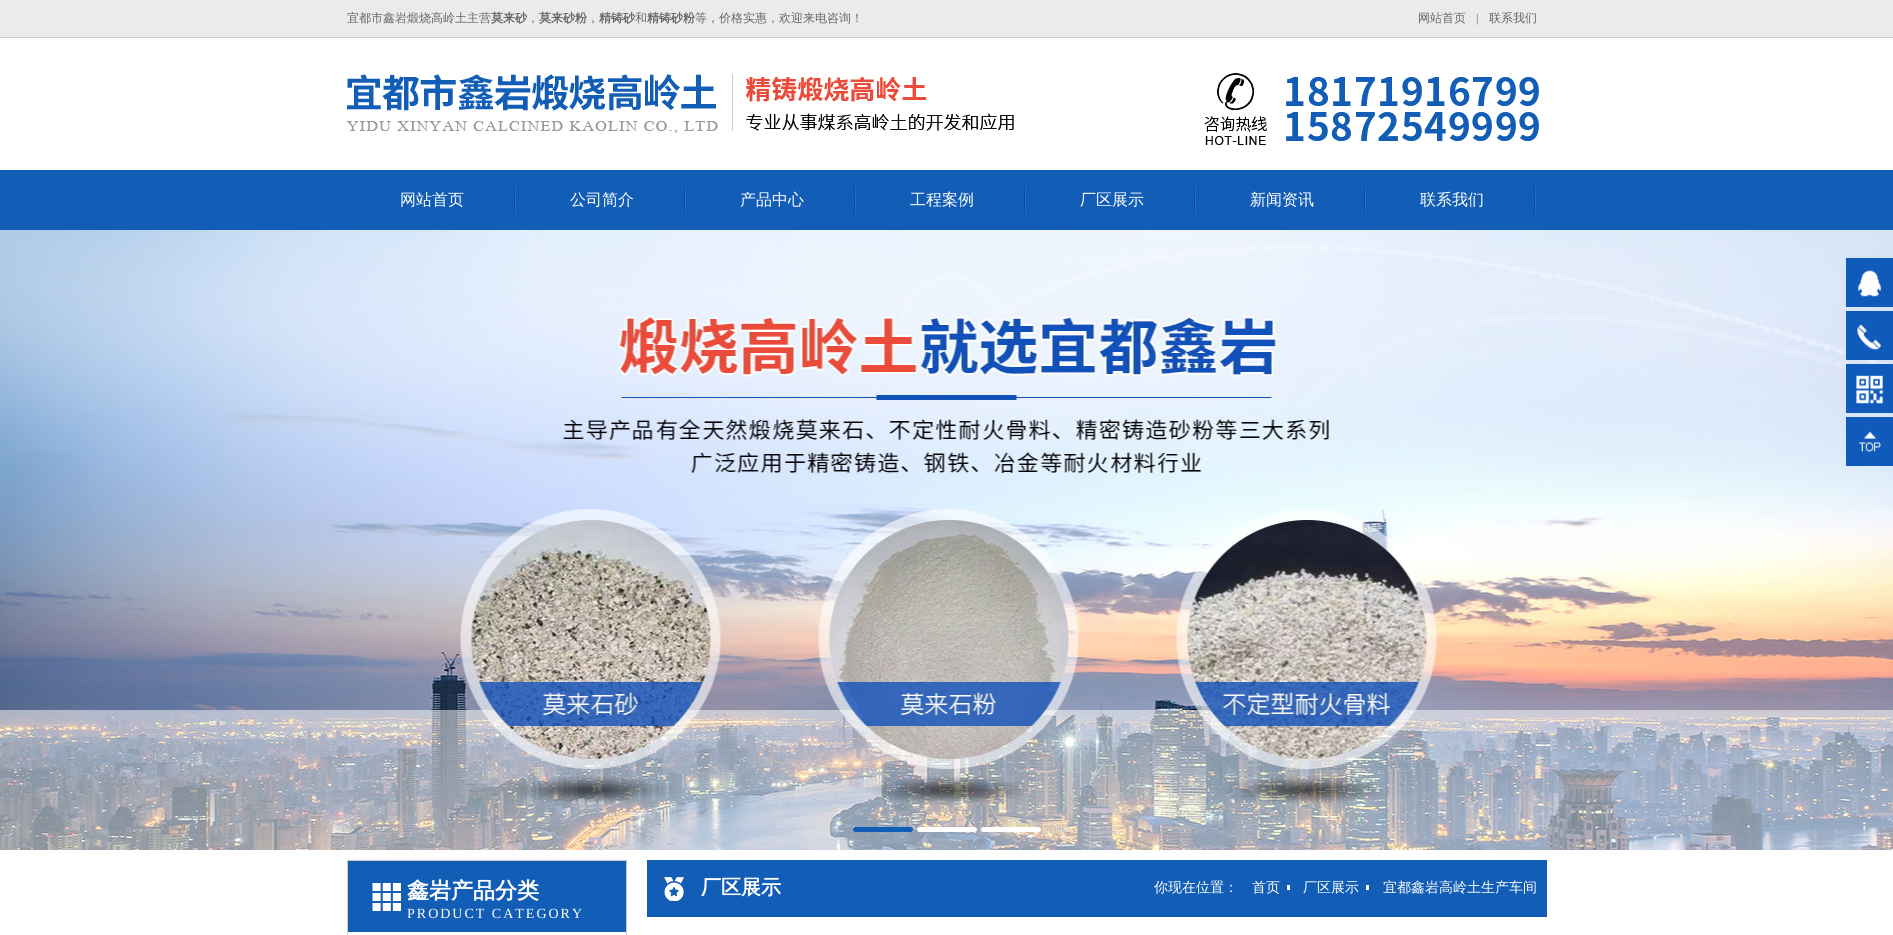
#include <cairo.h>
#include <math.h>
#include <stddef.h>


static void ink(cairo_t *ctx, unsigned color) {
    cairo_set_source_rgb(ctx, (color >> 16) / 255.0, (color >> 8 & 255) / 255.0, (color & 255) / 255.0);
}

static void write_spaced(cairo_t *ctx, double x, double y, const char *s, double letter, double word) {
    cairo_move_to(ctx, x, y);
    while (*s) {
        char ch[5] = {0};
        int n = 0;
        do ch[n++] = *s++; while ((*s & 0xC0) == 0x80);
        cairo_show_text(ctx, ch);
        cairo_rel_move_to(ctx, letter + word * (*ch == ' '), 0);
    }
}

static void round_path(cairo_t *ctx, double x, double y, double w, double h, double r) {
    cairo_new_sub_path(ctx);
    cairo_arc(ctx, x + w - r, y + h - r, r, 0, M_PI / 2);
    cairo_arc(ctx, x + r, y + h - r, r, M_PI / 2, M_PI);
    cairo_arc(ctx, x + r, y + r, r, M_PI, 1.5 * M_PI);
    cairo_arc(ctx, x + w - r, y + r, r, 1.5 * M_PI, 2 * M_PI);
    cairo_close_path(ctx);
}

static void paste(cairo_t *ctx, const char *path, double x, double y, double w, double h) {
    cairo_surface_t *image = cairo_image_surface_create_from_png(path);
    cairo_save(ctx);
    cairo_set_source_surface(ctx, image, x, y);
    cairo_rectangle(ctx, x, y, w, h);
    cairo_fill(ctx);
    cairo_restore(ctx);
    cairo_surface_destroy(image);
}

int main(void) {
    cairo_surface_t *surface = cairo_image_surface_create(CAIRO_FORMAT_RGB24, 1893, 935);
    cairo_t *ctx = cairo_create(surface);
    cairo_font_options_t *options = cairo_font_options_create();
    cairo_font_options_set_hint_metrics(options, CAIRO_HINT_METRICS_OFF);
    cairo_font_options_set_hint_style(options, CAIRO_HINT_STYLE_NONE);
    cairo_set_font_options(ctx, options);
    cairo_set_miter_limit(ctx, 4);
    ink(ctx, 0xFFFFFF);
    cairo_paint(ctx);
    ink(ctx, 0xEBEBEB);
    cairo_rectangle(ctx, 0, 0, 1893, 37);
    cairo_fill(ctx);
    ink(ctx, 0xCCCCCC);
    cairo_rectangle(ctx, 0, 37, 1893, 1);
    cairo_fill(ctx);
    cairo_select_font_face(ctx, "WenQuanYi Zen Hei Medium", CAIRO_FONT_SLANT_NORMAL, CAIRO_FONT_WEIGHT_NORMAL);
    cairo_set_font_size(ctx, 12);
    ink(ctx, 0x666666);
    cairo_move_to(ctx, 347, 22);
    cairo_show_text(ctx, "宜都市鑫岩煅烧高岭土主营");
    cairo_select_font_face(ctx, "WenQuanYi Zen Hei", CAIRO_FONT_SLANT_NORMAL, CAIRO_FONT_WEIGHT_BOLD);
    cairo_move_to(ctx, 491, 22);
    cairo_show_text(ctx, "莫来砂");
    cairo_select_font_face(ctx, "WenQuanYi Zen Hei Medium", CAIRO_FONT_SLANT_NORMAL, CAIRO_FONT_WEIGHT_NORMAL);
    cairo_move_to(ctx, 527, 22);
    cairo_show_text(ctx, "，");
    cairo_select_font_face(ctx, "WenQuanYi Zen Hei", CAIRO_FONT_SLANT_NORMAL, CAIRO_FONT_WEIGHT_BOLD);
    cairo_move_to(ctx, 539, 22);
    cairo_show_text(ctx, "莫来砂粉");
    cairo_select_font_face(ctx, "WenQuanYi Zen Hei Medium", CAIRO_FONT_SLANT_NORMAL, CAIRO_FONT_WEIGHT_NORMAL);
    cairo_move_to(ctx, 587, 22);
    cairo_show_text(ctx, "，");
    cairo_select_font_face(ctx, "WenQuanYi Zen Hei", CAIRO_FONT_SLANT_NORMAL, CAIRO_FONT_WEIGHT_BOLD);
    cairo_move_to(ctx, 599, 22);
    cairo_show_text(ctx, "精铸砂");
    cairo_select_font_face(ctx, "WenQuanYi Zen Hei Medium", CAIRO_FONT_SLANT_NORMAL, CAIRO_FONT_WEIGHT_NORMAL);
    cairo_move_to(ctx, 635, 22);
    cairo_show_text(ctx, "和");
    cairo_select_font_face(ctx, "WenQuanYi Zen Hei", CAIRO_FONT_SLANT_NORMAL, CAIRO_FONT_WEIGHT_BOLD);
    cairo_move_to(ctx, 647, 22);
    cairo_show_text(ctx, "精铸砂粉");
    cairo_select_font_face(ctx, "WenQuanYi Zen Hei Medium", CAIRO_FONT_SLANT_NORMAL, CAIRO_FONT_WEIGHT_NORMAL);
    cairo_move_to(ctx, 695, 22);
    cairo_show_text(ctx, "等，价格实惠，欢迎来电咨询！");
    cairo_move_to(ctx, 1418, 22);
    cairo_show_text(ctx, "网站首页");
    cairo_select_font_face(ctx, "Liberation Serif", CAIRO_FONT_SLANT_NORMAL, CAIRO_FONT_WEIGHT_NORMAL);
    cairo_move_to(ctx, 1476, 22);
    cairo_show_text(ctx, "|");
    cairo_select_font_face(ctx, "WenQuanYi Zen Hei Medium", CAIRO_FONT_SLANT_NORMAL, CAIRO_FONT_WEIGHT_NORMAL);
    cairo_move_to(ctx, 1489, 22);
    cairo_show_text(ctx, "联系我们");
    paste(ctx, "media/1.png", 347, 74, 667, 59);
    paste(ctx, "media/2.png", 1204, 73, 335, 72);
    ink(ctx, 0x125DB6);
    cairo_rectangle(ctx, 0, 170, 1893, 60);
    cairo_fill(ctx);
    cairo_set_font_size(ctx, 16);
    ink(ctx, 0xFFFFFF);
    cairo_move_to(ctx, 400, 205);
    cairo_show_text(ctx, "网站首页");
    paste(ctx, "media/3.png", 514, 182, 2, 37);
    cairo_move_to(ctx, 570, 205);
    cairo_show_text(ctx, "公司简介");
    paste(ctx, "media/3.png", 684, 182, 2, 37);
    cairo_move_to(ctx, 740, 205);
    cairo_show_text(ctx, "产品中心");
    paste(ctx, "media/3.png", 854, 182, 2, 37);
    cairo_move_to(ctx, 910, 205);
    cairo_show_text(ctx, "工程案例");
    paste(ctx, "media/3.png", 1024, 182, 2, 37);
    cairo_move_to(ctx, 1080, 205);
    cairo_show_text(ctx, "厂区展示");
    paste(ctx, "media/3.png", 1194, 182, 2, 37);
    cairo_move_to(ctx, 1250, 205);
    cairo_show_text(ctx, "新闻资讯");
    paste(ctx, "media/3.png", 1364, 182, 2, 37);
    cairo_move_to(ctx, 1420, 205);
    cairo_show_text(ctx, "联系我们");
    paste(ctx, "media/3.png", 1534, 182, 2, 37);
    paste(ctx, "media/4.png", 0, 230, 1893, 620);
    ink(ctx, 0x125DB6);
    round_path(ctx, 853, 827, 60, 5, 2.5);
    cairo_fill(ctx);
    ink(ctx, 0xFFFFFF);
    round_path(ctx, 917, 827, 60, 5, 2.5);
    cairo_fill(ctx);
    round_path(ctx, 981, 827, 60, 5, 2.5);
    cairo_fill(ctx);
    ink(ctx, 0x0F5ABB);
    cairo_rectangle(ctx, 1846, 258, 47, 49);
    cairo_fill(ctx);
    paste(ctx, "media/5.png", 1858, 270, 23, 27);
    cairo_rectangle(ctx, 1846, 311, 47, 49);
    cairo_fill(ctx);
    paste(ctx, "media/6.png", 1857, 324, 24, 26);
    cairo_rectangle(ctx, 1846, 364, 47, 49);
    cairo_fill(ctx);
    paste(ctx, "media/7.png", 1856, 375, 27, 29);
    cairo_rectangle(ctx, 1846, 417, 47, 49);
    cairo_fill(ctx);
    paste(ctx, "media/8.png", 1859, 431, 22, 21);
    cairo_rectangle(ctx, 347.5, 860.5, 279, 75);
    ink(ctx, 0xCCCCCC);
    cairo_set_line_width(ctx, 1);
    cairo_stroke(ctx);
    ink(ctx, 0x125DB6);
    cairo_rectangle(ctx, 348, 861, 278, 71);
    cairo_fill(ctx);
    paste(ctx, "media/9.png", 372, 883, 29, 28);
    cairo_select_font_face(ctx, "WenQuanYi Zen Hei", CAIRO_FONT_SLANT_NORMAL, CAIRO_FONT_WEIGHT_BOLD);
    cairo_set_font_size(ctx, 22);
    ink(ctx, 0xFFFFFF);
    cairo_move_to(ctx, 407, 898);
    cairo_show_text(ctx, "鑫岩产品分类");
    cairo_select_font_face(ctx, "Liberation Serif", CAIRO_FONT_SLANT_NORMAL, CAIRO_FONT_WEIGHT_NORMAL);
    cairo_set_font_size(ctx, 14);
    write_spaced(ctx, 407, 918, "PRODUCT CATEGORY", 2, 0);
    ink(ctx, 0x125DB6);
    cairo_rectangle(ctx, 647, 860, 900, 57);
    cairo_fill(ctx);
    paste(ctx, "media/10.png", 664, 877, 20, 24);
    cairo_select_font_face(ctx, "WenQuanYi Zen Hei", CAIRO_FONT_SLANT_NORMAL, CAIRO_FONT_WEIGHT_BOLD);
    cairo_set_font_size(ctx, 20);
    ink(ctx, 0xFFFFFF);
    cairo_move_to(ctx, 701, 894);
    cairo_show_text(ctx, "厂区展示");
    cairo_select_font_face(ctx, "WenQuanYi Zen Hei Medium", CAIRO_FONT_SLANT_NORMAL, CAIRO_FONT_WEIGHT_NORMAL);
    cairo_set_font_size(ctx, 14);
    cairo_move_to(ctx, 1154, 892);
    cairo_show_text(ctx, "你现在位置：");
    cairo_move_to(ctx, 1252, 892);
    cairo_show_text(ctx, "首页");
    cairo_rectangle(ctx, 1287, 885, 3, 5);
    cairo_fill(ctx);
    cairo_move_to(ctx, 1303, 892);
    cairo_show_text(ctx, "厂区展示");
    cairo_rectangle(ctx, 1366, 885, 3, 5);
    cairo_fill(ctx);
    cairo_move_to(ctx, 1383, 892);
    cairo_show_text(ctx, "宜都鑫岩高岭土生产车间");
    cairo_surface_write_to_png(surface, "image.png");
    cairo_font_options_destroy(options);
    cairo_destroy(ctx);
    cairo_surface_destroy(surface);
    return 0;
}
